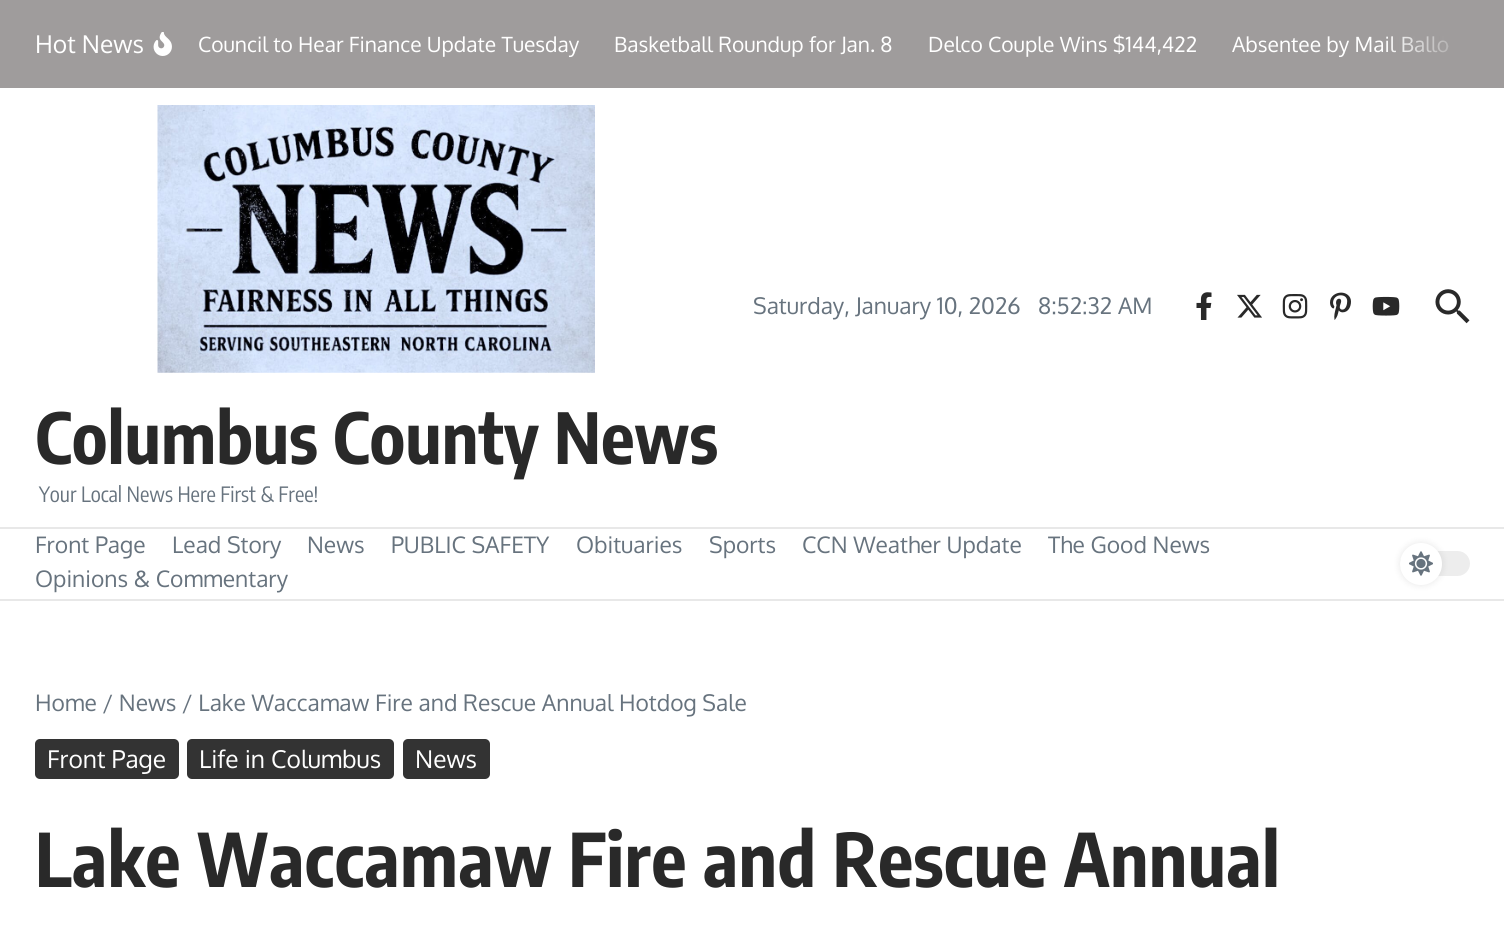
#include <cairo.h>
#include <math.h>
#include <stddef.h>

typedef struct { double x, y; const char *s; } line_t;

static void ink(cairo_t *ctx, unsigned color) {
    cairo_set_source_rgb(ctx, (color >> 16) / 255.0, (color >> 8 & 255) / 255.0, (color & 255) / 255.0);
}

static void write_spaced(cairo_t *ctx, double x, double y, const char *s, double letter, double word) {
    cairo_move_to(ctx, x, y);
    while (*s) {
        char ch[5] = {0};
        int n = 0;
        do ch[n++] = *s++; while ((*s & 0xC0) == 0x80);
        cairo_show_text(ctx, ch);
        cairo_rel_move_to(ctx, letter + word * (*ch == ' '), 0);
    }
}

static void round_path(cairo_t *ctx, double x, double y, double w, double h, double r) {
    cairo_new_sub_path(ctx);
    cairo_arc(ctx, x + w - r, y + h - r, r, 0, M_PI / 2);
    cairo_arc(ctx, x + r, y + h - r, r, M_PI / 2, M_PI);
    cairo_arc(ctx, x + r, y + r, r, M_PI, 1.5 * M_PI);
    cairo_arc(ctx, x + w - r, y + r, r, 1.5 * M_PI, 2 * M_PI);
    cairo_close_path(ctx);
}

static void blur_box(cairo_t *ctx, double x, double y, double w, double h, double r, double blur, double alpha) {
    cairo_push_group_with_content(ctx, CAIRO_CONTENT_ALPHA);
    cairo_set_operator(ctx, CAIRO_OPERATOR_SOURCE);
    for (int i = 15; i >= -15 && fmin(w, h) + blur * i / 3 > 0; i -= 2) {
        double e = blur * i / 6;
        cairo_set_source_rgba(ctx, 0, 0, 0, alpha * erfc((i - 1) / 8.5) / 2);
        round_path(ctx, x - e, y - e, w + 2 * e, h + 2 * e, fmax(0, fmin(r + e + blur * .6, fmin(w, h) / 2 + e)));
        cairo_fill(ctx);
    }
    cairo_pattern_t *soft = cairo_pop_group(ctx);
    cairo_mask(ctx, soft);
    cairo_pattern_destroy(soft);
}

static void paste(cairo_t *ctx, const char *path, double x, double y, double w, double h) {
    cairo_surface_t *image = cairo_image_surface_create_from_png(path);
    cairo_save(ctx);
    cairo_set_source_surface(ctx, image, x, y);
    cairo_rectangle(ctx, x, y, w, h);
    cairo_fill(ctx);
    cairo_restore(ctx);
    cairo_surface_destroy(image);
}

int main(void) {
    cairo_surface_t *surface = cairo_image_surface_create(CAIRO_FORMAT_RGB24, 1504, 933);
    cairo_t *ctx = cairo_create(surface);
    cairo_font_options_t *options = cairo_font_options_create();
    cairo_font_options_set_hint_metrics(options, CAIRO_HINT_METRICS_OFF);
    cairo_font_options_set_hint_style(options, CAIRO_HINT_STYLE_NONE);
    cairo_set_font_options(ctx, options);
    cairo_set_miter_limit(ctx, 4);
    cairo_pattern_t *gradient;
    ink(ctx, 0xFFFFFF);
    cairo_paint(ctx);
    ink(ctx, 0x9F9C9C);
    cairo_rectangle(ctx, 0, 0, 1504, 88);
    cairo_fill(ctx);
    cairo_select_font_face(ctx, "Oxygen", CAIRO_FONT_SLANT_NORMAL, CAIRO_FONT_WEIGHT_NORMAL);
    cairo_set_font_size(ctx, 24.5);
    ink(ctx, 0xFFFFFF);
    cairo_move_to(ctx, 35, 53);
    cairo_show_text(ctx, "Hot News");
    paste(ctx, "media/1.png", 153, 32, 19, 24);
    cairo_set_font_size(ctx, 21);
    {
        static const line_t items[] = {
            {198, 52, "Council to Hear Finance Update Tuesday"},
            {614, 52, "Basketball Roundup for Jan. 8"},
            {928, 52, "Delco Couple Wins $144,422"},
            {1232, 52, "Absentee by Mail Ballo"},
        };
        for (size_t i = 0; i < sizeof items / sizeof *items; i++) {
            cairo_move_to(ctx, items[i].x, items[i].y);
            cairo_show_text(ctx, items[i].s);
        }
    }
    gradient = cairo_pattern_create_linear(1383, 45, 1470, 45);
    cairo_pattern_add_color_stop_rgba(gradient, 0, 0.624, 0.612, 0.612, 0);
    cairo_pattern_add_color_stop_rgba(gradient, 1, 0.624, 0.612, 0.612, 1);
    cairo_set_source(ctx, gradient);
    cairo_pattern_destroy(gradient);
    cairo_rectangle(ctx, 1386, 36, 62, 17);
    cairo_fill(ctx);
    ink(ctx, 0xE8E8E8);
    cairo_rectangle(ctx, 0, 527, 1504, 2);
    cairo_fill(ctx);
    cairo_set_font_size(ctx, 22.75);
    ink(ctx, 0x67737E);
    cairo_move_to(ctx, 753, 314);
    cairo_show_text(ctx, "Saturday, January 10, 2026");
    cairo_move_to(ctx, 1038, 314);
    cairo_show_text(ctx, "8:52:32 AM");
    paste(ctx, "media/2.png", 157, 105, 438, 268);
    cairo_select_font_face(ctx, "Encode Sans Condensed", CAIRO_FONT_SLANT_NORMAL, CAIRO_FONT_WEIGHT_BOLD);
    cairo_set_font_size(ctx, 70);
    ink(ctx, 0x292929);
    cairo_move_to(ctx, 35, 464);
    cairo_show_text(ctx, "Columbus County News");
    cairo_select_font_face(ctx, "Encode Sans Condensed", CAIRO_FONT_SLANT_NORMAL, CAIRO_FONT_WEIGHT_NORMAL);
    cairo_set_font_size(ctx, 21);
    ink(ctx, 0x67737E);
    cairo_move_to(ctx, 39, 502);
    cairo_show_text(ctx, "Your Local News Here First & Free!");
    paste(ctx, "media/3.png", 1196, 292, 16, 28);
    paste(ctx, "media/4.png", 1237, 294, 25, 24);
    paste(ctx, "media/5.png", 1282, 294, 26, 25);
    paste(ctx, "media/6.png", 1330, 292, 21, 28);
    paste(ctx, "media/7.png", 1372, 296, 28, 20);
    paste(ctx, "media/8.png", 1435, 289, 35, 35);
    ink(ctx, 0xE8E8E8);
    cairo_rectangle(ctx, 0, 599, 1504, 2);
    cairo_fill(ctx);
    cairo_select_font_face(ctx, "Oxygen", CAIRO_FONT_SLANT_NORMAL, CAIRO_FONT_WEIGHT_NORMAL);
    cairo_set_font_size(ctx, 22.75);
    ink(ctx, 0x67737E);
    {
        static const line_t items[] = {
            {35, 553, "Front Page"},
            {172, 553, "Lead Story"},
            {307, 553, "News"},
            {391, 553, "PUBLIC SAFETY"},
            {576, 553, "Obituaries"},
            {709, 553, "Sports"},
            {802, 553, "CCN Weather Update"},
            {1048, 553, "The Good News"},
            {35, 587, "Opinions & Commentary"},
        };
        for (size_t i = 0; i < sizeof items / sizeof *items; i++) {
            cairo_move_to(ctx, items[i].x, items[i].y);
            cairo_show_text(ctx, items[i].s);
        }
    }
    ink(ctx, 0xEDEDED);
    round_path(ctx, 1400, 551, 70, 25, 12.5);
    cairo_fill(ctx);
    ink(ctx, 0x000000);
    blur_box(ctx, 1400, 543, 42, 42, 21, 3.5, 0.1);
    ink(ctx, 0xFFFFFF);
    cairo_arc(ctx, 1421, 564, 21, 0, 2 * M_PI);
    cairo_fill(ctx);
    paste(ctx, "media/9.png", 1409, 551, 24, 25);
    ink(ctx, 0x67737E);
    cairo_move_to(ctx, 35, 711);
    cairo_show_text(ctx, "Home / News / Lake Waccamaw Fire and Rescue Annual Hotdog Sale");
    ink(ctx, 0x333333);
    round_path(ctx, 35, 739, 144, 40, 5);
    cairo_fill(ctx);
    cairo_set_font_size(ctx, 24.5);
    ink(ctx, 0xFFFFFF);
    cairo_move_to(ctx, 47, 768);
    cairo_show_text(ctx, "Front Page");
    ink(ctx, 0x333333);
    round_path(ctx, 187, 739, 207, 40, 5);
    cairo_fill(ctx);
    ink(ctx, 0xFFFFFF);
    cairo_move_to(ctx, 199, 768);
    cairo_show_text(ctx, "Life in Columbus");
    ink(ctx, 0x333333);
    round_path(ctx, 403, 739, 87, 40, 5);
    cairo_fill(ctx);
    ink(ctx, 0xFFFFFF);
    cairo_move_to(ctx, 415, 768);
    cairo_show_text(ctx, "News");
    cairo_select_font_face(ctx, "Encode Sans Condensed", CAIRO_FONT_SLANT_NORMAL, CAIRO_FONT_WEIGHT_BOLD);
    cairo_set_font_size(ctx, 73.5);
    ink(ctx, 0x292929);
    write_spaced(ctx, 35, 887, "Lake Waccamaw Fire and Rescue Annual", 0.35, 0);
    cairo_surface_write_to_png(surface, "image.png");
    cairo_font_options_destroy(options);
    cairo_destroy(ctx);
    cairo_surface_destroy(surface);
    return 0;
}
